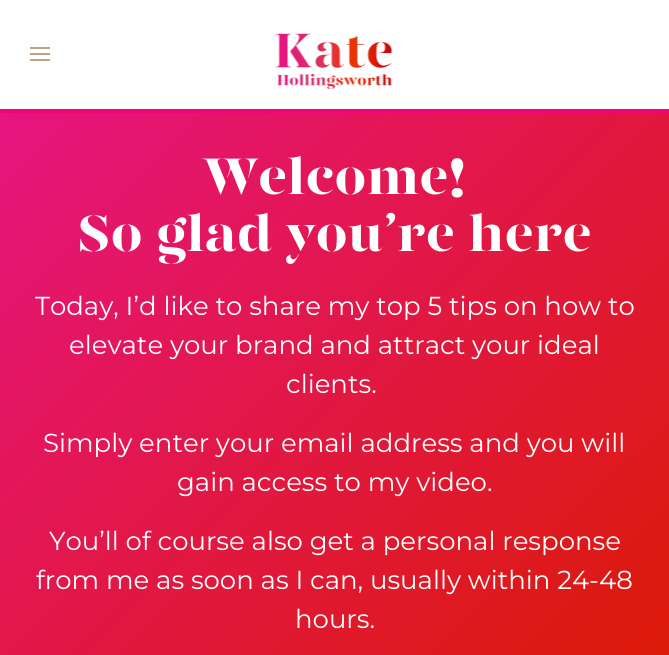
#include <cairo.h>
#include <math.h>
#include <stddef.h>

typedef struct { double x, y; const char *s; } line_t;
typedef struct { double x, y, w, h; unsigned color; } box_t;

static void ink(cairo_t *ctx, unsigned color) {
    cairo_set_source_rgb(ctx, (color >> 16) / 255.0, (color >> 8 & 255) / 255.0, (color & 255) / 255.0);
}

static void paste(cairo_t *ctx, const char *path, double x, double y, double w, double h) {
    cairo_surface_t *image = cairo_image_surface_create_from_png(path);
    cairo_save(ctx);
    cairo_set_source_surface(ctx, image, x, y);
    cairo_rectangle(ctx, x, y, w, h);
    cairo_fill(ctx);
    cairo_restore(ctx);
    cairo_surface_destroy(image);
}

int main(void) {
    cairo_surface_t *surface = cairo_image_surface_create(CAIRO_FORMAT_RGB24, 669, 655);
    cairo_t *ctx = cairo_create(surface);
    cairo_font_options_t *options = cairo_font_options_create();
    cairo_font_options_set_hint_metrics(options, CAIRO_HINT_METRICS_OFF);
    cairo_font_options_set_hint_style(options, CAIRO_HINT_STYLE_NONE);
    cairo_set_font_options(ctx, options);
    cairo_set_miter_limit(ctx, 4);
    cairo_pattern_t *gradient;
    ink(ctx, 0xFFFFFF);
    cairo_paint(ctx);
    {
        static const box_t items[] = {
            {0, 109, 669, 4, 0xF40477},
            {30, 47, 20, 2, 0xBCA385},
            {30, 53, 20, 2, 0xBCA385},
            {30, 59, 20, 2, 0xBCA385},
        };
        for (size_t i = 0; i < sizeof items / sizeof *items; i++) {
            ink(ctx, items[i].color);
            cairo_rectangle(ctx, items[i].x, items[i].y, items[i].w, items[i].h);
            cairo_fill(ctx);
        }
    }
    paste(ctx, "media/1.png", 275, 33, 118, 56);
    gradient = cairo_pattern_create_linear(26, 87, 643, 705);
    cairo_pattern_add_color_stop_rgba(gradient, 0, 0.902, 0.082, 0.502, 1);
    cairo_pattern_add_color_stop_rgba(gradient, 1, 0.863, 0.102, 0.02, 1);
    cairo_set_source(ctx, gradient);
    cairo_pattern_destroy(gradient);
    cairo_rectangle(ctx, 0, 113, 669, 542);
    cairo_fill(ctx);
    cairo_select_font_face(ctx, "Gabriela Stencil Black", CAIRO_FONT_SLANT_NORMAL, CAIRO_FONT_WEIGHT_NORMAL);
    cairo_set_font_size(ctx, 52);
    ink(ctx, 0xFFFFFF);
    cairo_move_to(ctx, 204, 194);
    cairo_show_text(ctx, "Welcome!");
    cairo_move_to(ctx, 77, 251);
    cairo_show_text(ctx, "So glad you’re here");
    cairo_select_font_face(ctx, "Montserrat Thin", CAIRO_FONT_SLANT_NORMAL, CAIRO_FONT_WEIGHT_NORMAL);
    cairo_set_font_size(ctx, 26);
    {
        static const line_t items[] = {
            {35, 315, "Today, I’d like to share my top 5 tips on how to"},
            {69, 354, "elevate your brand and attract your ideal"},
            {286, 393, "clients."},
            {43, 452, "Simply enter your email address and you will"},
            {177, 491, "gain access to my video."},
            {49, 550, "You’ll of course also get a personal response"},
            {36, 589, "from me as soon as I can, usually within 24-48"},
            {295, 628, "hours."},
        };
        for (size_t i = 0; i < sizeof items / sizeof *items; i++) {
            cairo_move_to(ctx, items[i].x, items[i].y);
            cairo_show_text(ctx, items[i].s);
        }
    }
    cairo_surface_write_to_png(surface, "image.png");
    cairo_font_options_destroy(options);
    cairo_destroy(ctx);
    cairo_surface_destroy(surface);
    return 0;
}
